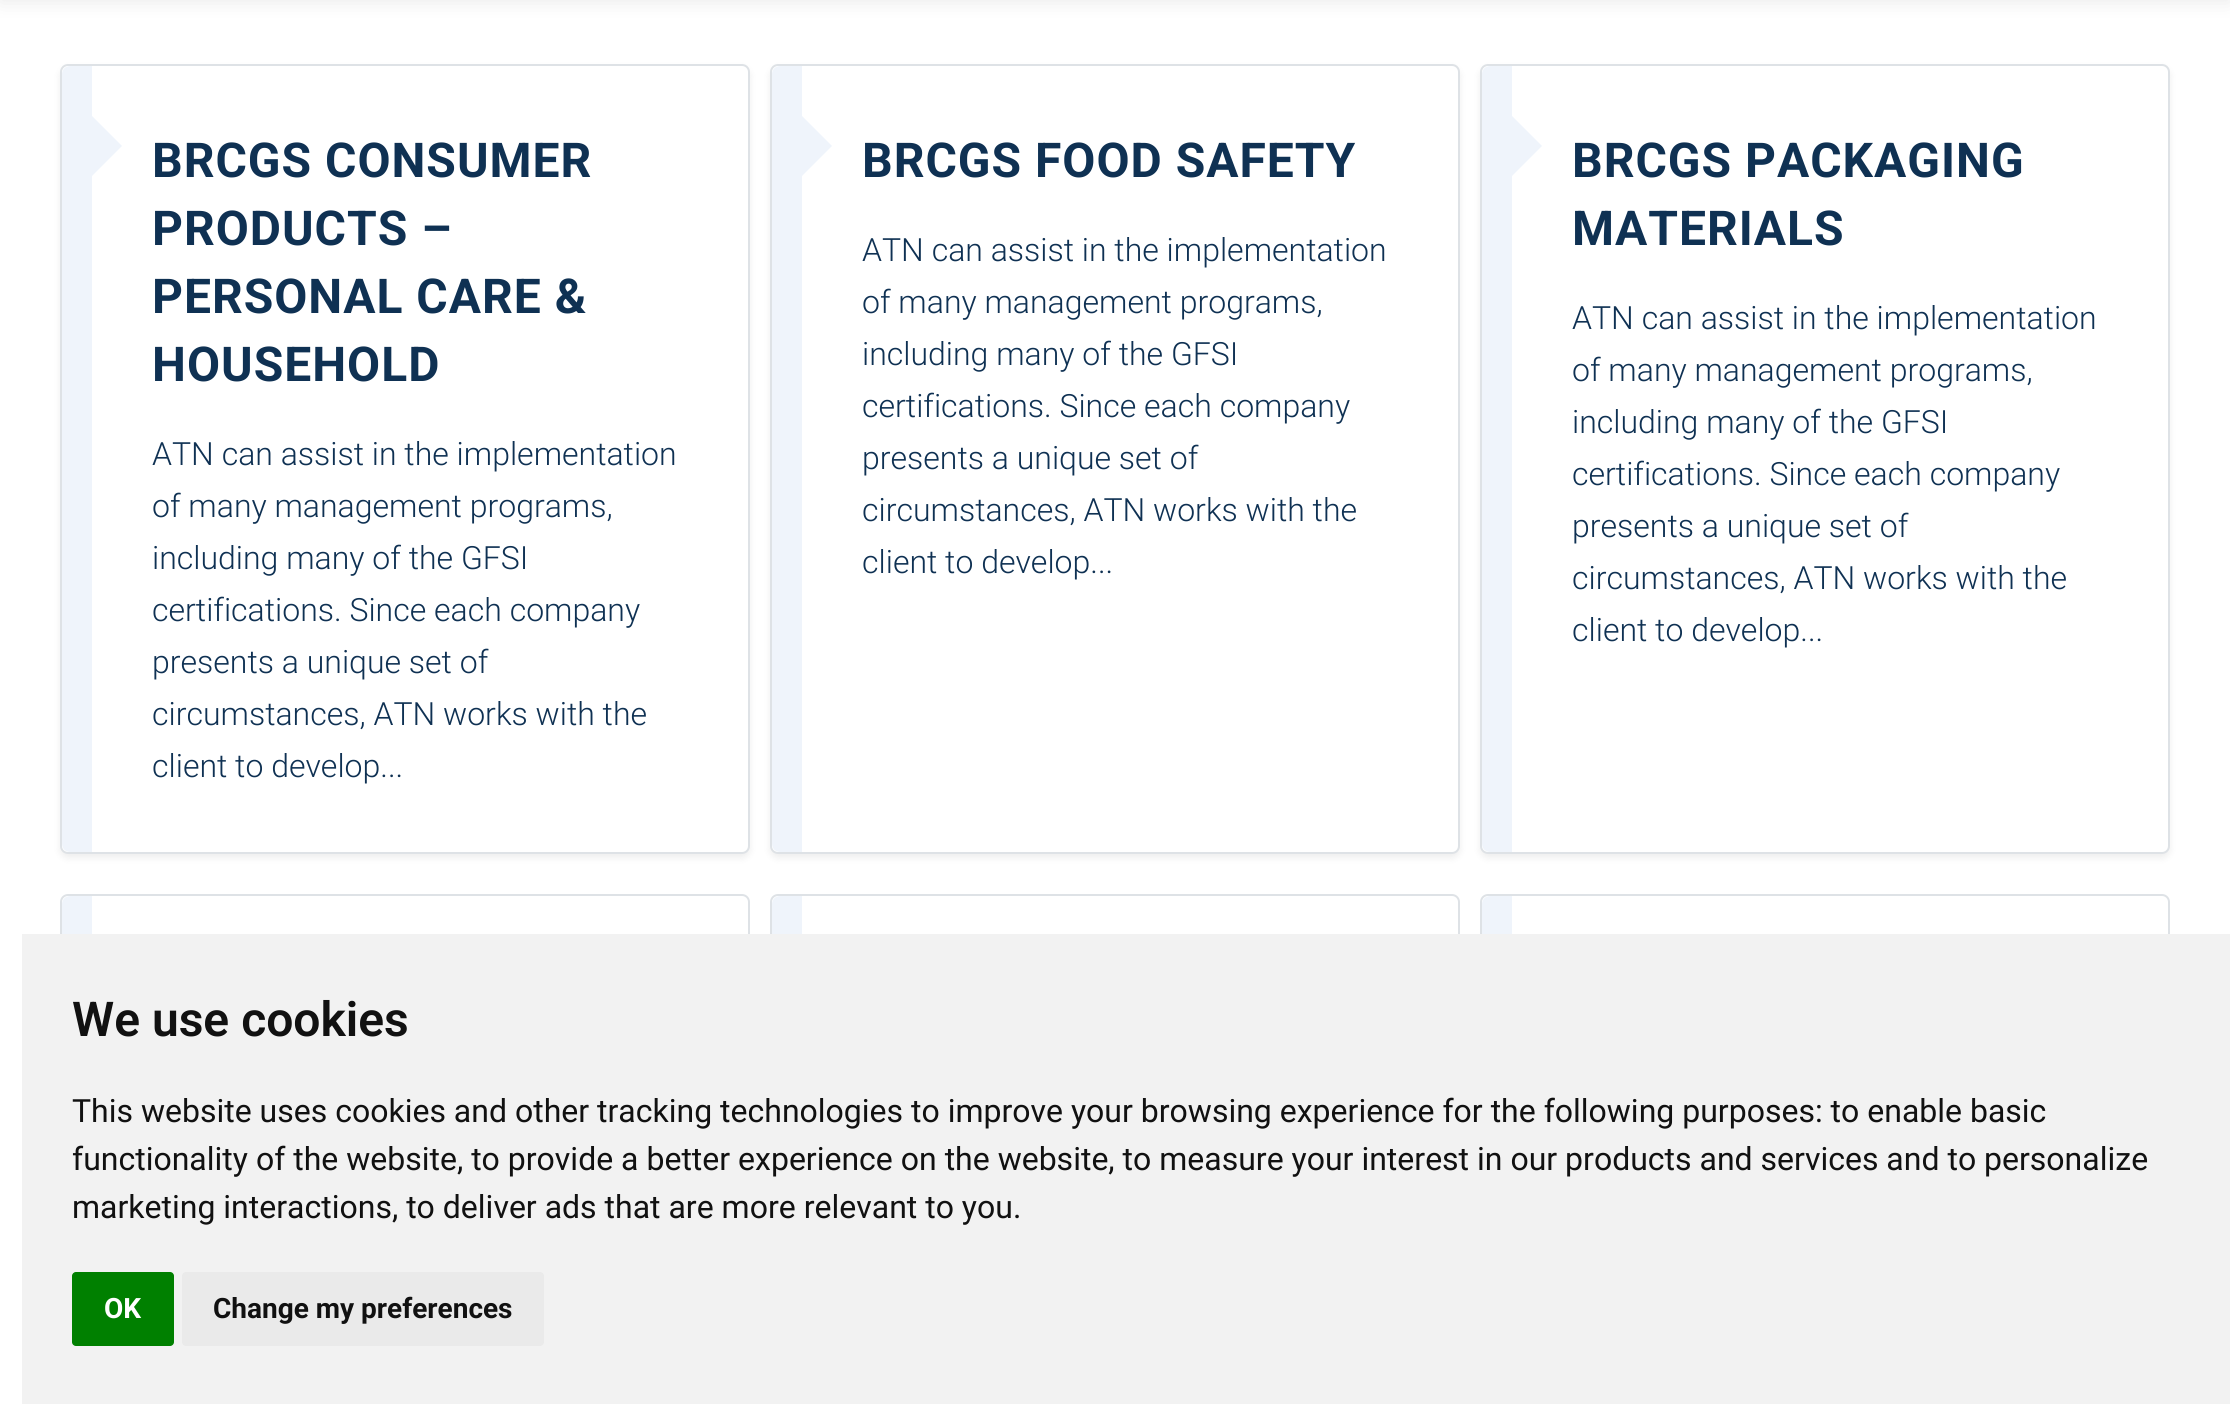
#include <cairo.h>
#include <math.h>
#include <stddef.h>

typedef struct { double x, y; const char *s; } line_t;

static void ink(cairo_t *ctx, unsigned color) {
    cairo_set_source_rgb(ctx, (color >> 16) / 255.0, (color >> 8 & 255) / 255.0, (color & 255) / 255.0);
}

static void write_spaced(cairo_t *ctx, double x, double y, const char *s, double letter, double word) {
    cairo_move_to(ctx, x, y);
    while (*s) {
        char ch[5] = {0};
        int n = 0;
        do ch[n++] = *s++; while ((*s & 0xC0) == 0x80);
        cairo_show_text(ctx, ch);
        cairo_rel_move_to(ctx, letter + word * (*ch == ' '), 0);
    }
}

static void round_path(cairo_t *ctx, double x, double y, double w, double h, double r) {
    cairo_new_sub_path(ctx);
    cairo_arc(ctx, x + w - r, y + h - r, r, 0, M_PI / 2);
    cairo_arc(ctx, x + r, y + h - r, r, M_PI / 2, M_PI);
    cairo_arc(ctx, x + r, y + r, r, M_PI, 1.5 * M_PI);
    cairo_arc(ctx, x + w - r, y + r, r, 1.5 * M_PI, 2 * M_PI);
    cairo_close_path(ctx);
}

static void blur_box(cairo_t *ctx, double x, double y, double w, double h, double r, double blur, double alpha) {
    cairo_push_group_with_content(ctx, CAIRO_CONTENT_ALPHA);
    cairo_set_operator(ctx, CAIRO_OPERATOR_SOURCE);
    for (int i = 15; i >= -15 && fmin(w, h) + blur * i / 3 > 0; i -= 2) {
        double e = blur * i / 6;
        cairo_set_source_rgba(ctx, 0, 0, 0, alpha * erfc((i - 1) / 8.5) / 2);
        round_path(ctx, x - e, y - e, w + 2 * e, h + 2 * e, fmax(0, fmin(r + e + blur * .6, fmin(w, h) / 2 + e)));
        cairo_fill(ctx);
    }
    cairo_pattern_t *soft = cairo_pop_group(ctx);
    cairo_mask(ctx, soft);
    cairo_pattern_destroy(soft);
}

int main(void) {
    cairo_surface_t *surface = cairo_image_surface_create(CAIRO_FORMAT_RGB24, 2230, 1404);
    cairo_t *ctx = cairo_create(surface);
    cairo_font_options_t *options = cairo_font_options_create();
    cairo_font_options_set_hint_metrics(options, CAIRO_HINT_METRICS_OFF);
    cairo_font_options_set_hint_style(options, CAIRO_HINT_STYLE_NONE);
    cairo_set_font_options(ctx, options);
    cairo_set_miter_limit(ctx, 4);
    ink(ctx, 0xFFFFFF);
    cairo_paint(ctx);
    ink(ctx, 0x000000);
    blur_box(ctx, 0, -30, 2230, 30, 0, 10, 0.1);
    blur_box(ctx, 60, 68, 690, 790, 8, 4, 0.07);
    ink(ctx, 0xFFFFFF);
    round_path(ctx, 61, 65, 688, 788, 7);
    cairo_fill_preserve(ctx);
    ink(ctx, 0xDEE2E6);
    cairo_stroke(ctx);
    ink(ctx, 0xEFF4FB);
    cairo_new_path(ctx);
    cairo_move_to(ctx, 70, 66);
    cairo_line_to(ctx, 92, 66);
    cairo_line_to(ctx, 92, 852);
    cairo_line_to(ctx, 70, 852);
    cairo_curve_to(ctx, 65.5, 852, 62, 848.5, 62, 844);
    cairo_line_to(ctx, 62, 74);
    cairo_curve_to(ctx, 62, 69.5, 65.5, 66, 70, 66);
    cairo_close_path(ctx);
    cairo_fill(ctx);
    cairo_new_path(ctx);
    cairo_move_to(ctx, 92, 176);
    cairo_line_to(ctx, 92, 116);
    cairo_line_to(ctx, 122, 146);
    cairo_close_path(ctx);
    cairo_fill(ctx);
    cairo_select_font_face(ctx, "Roboto", CAIRO_FONT_SLANT_NORMAL, CAIRO_FONT_WEIGHT_BOLD);
    cairo_set_font_size(ctx, 48);
    ink(ctx, 0x0F3153);
    {
        static const line_t items[] = {
            {152, 177, "BRCGS CONSUMER"},
            {152, 245, "PRODUCTS –"},
            {152, 313, "PERSONAL CARE &"},
            {152, 381, "HOUSEHOLD"},
        };
        for (size_t i = 0; i < sizeof items / sizeof *items; i++) {
            write_spaced(ctx, items[i].x, items[i].y, items[i].s, 1, 0);
        }
    }
    cairo_select_font_face(ctx, "Roboto Light", CAIRO_FONT_SLANT_NORMAL, CAIRO_FONT_WEIGHT_NORMAL);
    cairo_set_font_size(ctx, 32);
    {
        static const line_t items[] = {
            {152, 465, "ATN can assist in the implementation"},
            {152, 517, "of many management programs,"},
            {152, 569, "including many of the GFSI"},
            {152, 621, "certifications. Since each company"},
            {152, 673, "presents a unique set of"},
            {152, 725, "circumstances, ATN works with the"},
            {152, 777, "client to develop..."},
        };
        for (size_t i = 0; i < sizeof items / sizeof *items; i++) {
            cairo_move_to(ctx, items[i].x, items[i].y);
            cairo_show_text(ctx, items[i].s);
        }
    }
    ink(ctx, 0x000000);
    blur_box(ctx, 770, 68, 690, 790, 8, 4, 0.07);
    ink(ctx, 0xFFFFFF);
    round_path(ctx, 771, 65, 688, 788, 7);
    cairo_fill_preserve(ctx);
    ink(ctx, 0xDEE2E6);
    cairo_stroke(ctx);
    ink(ctx, 0xEFF4FB);
    cairo_new_path(ctx);
    cairo_move_to(ctx, 780, 66);
    cairo_line_to(ctx, 802, 66);
    cairo_line_to(ctx, 802, 852);
    cairo_line_to(ctx, 780, 852);
    cairo_curve_to(ctx, 775.5, 852, 772, 848.5, 772, 844);
    cairo_line_to(ctx, 772, 74);
    cairo_curve_to(ctx, 772, 69.5, 775.5, 66, 780, 66);
    cairo_close_path(ctx);
    cairo_fill(ctx);
    cairo_new_path(ctx);
    cairo_move_to(ctx, 802, 176);
    cairo_line_to(ctx, 802, 116);
    cairo_line_to(ctx, 832, 146);
    cairo_close_path(ctx);
    cairo_fill(ctx);
    cairo_select_font_face(ctx, "Roboto", CAIRO_FONT_SLANT_NORMAL, CAIRO_FONT_WEIGHT_BOLD);
    cairo_set_font_size(ctx, 48);
    ink(ctx, 0x0F3153);
    write_spaced(ctx, 862, 177, "BRCGS FOOD SAFETY", 1, 0);
    cairo_select_font_face(ctx, "Roboto Light", CAIRO_FONT_SLANT_NORMAL, CAIRO_FONT_WEIGHT_NORMAL);
    cairo_set_font_size(ctx, 32);
    {
        static const line_t items[] = {
            {862, 261, "ATN can assist in the implementation"},
            {862, 313, "of many management programs,"},
            {862, 365, "including many of the GFSI"},
            {862, 417, "certifications. Since each company"},
            {862, 469, "presents a unique set of"},
            {862, 521, "circumstances, ATN works with the"},
            {862, 573, "client to develop..."},
        };
        for (size_t i = 0; i < sizeof items / sizeof *items; i++) {
            cairo_move_to(ctx, items[i].x, items[i].y);
            cairo_show_text(ctx, items[i].s);
        }
    }
    ink(ctx, 0x000000);
    blur_box(ctx, 1480, 68, 690, 790, 8, 4, 0.07);
    ink(ctx, 0xFFFFFF);
    round_path(ctx, 1481, 65, 688, 788, 7);
    cairo_fill_preserve(ctx);
    ink(ctx, 0xDEE2E6);
    cairo_stroke(ctx);
    ink(ctx, 0xEFF4FB);
    cairo_new_path(ctx);
    cairo_move_to(ctx, 1490, 66);
    cairo_line_to(ctx, 1512, 66);
    cairo_line_to(ctx, 1512, 852);
    cairo_line_to(ctx, 1490, 852);
    cairo_curve_to(ctx, 1485.5, 852, 1482, 848.5, 1482, 844);
    cairo_line_to(ctx, 1482, 74);
    cairo_curve_to(ctx, 1482, 69.5, 1485.5, 66, 1490, 66);
    cairo_close_path(ctx);
    cairo_fill(ctx);
    cairo_new_path(ctx);
    cairo_move_to(ctx, 1512, 176);
    cairo_line_to(ctx, 1512, 116);
    cairo_line_to(ctx, 1542, 146);
    cairo_close_path(ctx);
    cairo_fill(ctx);
    cairo_select_font_face(ctx, "Roboto", CAIRO_FONT_SLANT_NORMAL, CAIRO_FONT_WEIGHT_BOLD);
    cairo_set_font_size(ctx, 48);
    ink(ctx, 0x0F3153);
    write_spaced(ctx, 1572, 177, "BRCGS PACKAGING", 1, 0);
    write_spaced(ctx, 1572, 245, "MATERIALS", 1, 0);
    cairo_select_font_face(ctx, "Roboto Light", CAIRO_FONT_SLANT_NORMAL, CAIRO_FONT_WEIGHT_NORMAL);
    cairo_set_font_size(ctx, 32);
    {
        static const line_t items[] = {
            {1572, 329, "ATN can assist in the implementation"},
            {1572, 381, "of many management programs,"},
            {1572, 433, "including many of the GFSI"},
            {1572, 485, "certifications. Since each company"},
            {1572, 537, "presents a unique set of"},
            {1572, 589, "circumstances, ATN works with the"},
            {1572, 641, "client to develop..."},
        };
        for (size_t i = 0; i < sizeof items / sizeof *items; i++) {
            cairo_move_to(ctx, items[i].x, items[i].y);
            cairo_show_text(ctx, items[i].s);
        }
    }
    round_path(ctx, 61, 895, 688, 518, 7);
    ink(ctx, 0xDEE2E6);
    cairo_stroke(ctx);
    ink(ctx, 0xEFF4FB);
    cairo_new_path(ctx);
    cairo_move_to(ctx, 70, 896);
    cairo_line_to(ctx, 92, 896);
    cairo_line_to(ctx, 92, 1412);
    cairo_line_to(ctx, 70, 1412);
    cairo_curve_to(ctx, 65.5, 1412, 62, 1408.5, 62, 1404);
    cairo_line_to(ctx, 62, 904);
    cairo_curve_to(ctx, 62, 899.5, 65.5, 896, 70, 896);
    cairo_close_path(ctx);
    cairo_fill(ctx);
    round_path(ctx, 771, 895, 688, 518, 7);
    ink(ctx, 0xDEE2E6);
    cairo_stroke(ctx);
    ink(ctx, 0xEFF4FB);
    cairo_new_path(ctx);
    cairo_move_to(ctx, 780, 896);
    cairo_line_to(ctx, 802, 896);
    cairo_line_to(ctx, 802, 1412);
    cairo_line_to(ctx, 780, 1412);
    cairo_curve_to(ctx, 775.5, 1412, 772, 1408.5, 772, 1404);
    cairo_line_to(ctx, 772, 904);
    cairo_curve_to(ctx, 772, 899.5, 775.5, 896, 780, 896);
    cairo_close_path(ctx);
    cairo_fill(ctx);
    round_path(ctx, 1481, 895, 688, 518, 7);
    ink(ctx, 0xDEE2E6);
    cairo_stroke(ctx);
    ink(ctx, 0xEFF4FB);
    cairo_new_path(ctx);
    cairo_move_to(ctx, 1490, 896);
    cairo_line_to(ctx, 1512, 896);
    cairo_line_to(ctx, 1512, 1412);
    cairo_line_to(ctx, 1490, 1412);
    cairo_curve_to(ctx, 1485.5, 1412, 1482, 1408.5, 1482, 1404);
    cairo_line_to(ctx, 1482, 904);
    cairo_curve_to(ctx, 1482, 899.5, 1485.5, 896, 1490, 896);
    cairo_close_path(ctx);
    cairo_fill(ctx);
    ink(ctx, 0xF2F2F2);
    cairo_rectangle(ctx, 22, 934, 2208, 470);
    cairo_fill(ctx);
    cairo_select_font_face(ctx, "Roboto SemiBold", CAIRO_FONT_SLANT_NORMAL, CAIRO_FONT_WEIGHT_NORMAL);
    cairo_set_font_size(ctx, 48);
    ink(ctx, 0x111111);
    cairo_move_to(ctx, 72, 1036);
    cairo_show_text(ctx, "We use cookies");
    cairo_select_font_face(ctx, "Roboto", CAIRO_FONT_SLANT_NORMAL, CAIRO_FONT_WEIGHT_NORMAL);
    cairo_set_font_size(ctx, 32);
    {
        static const line_t items[] = {
            {72, 1122, "This website uses cookies and other tracking technologies to improve your browsing experience for the following purposes: to enable basic"},
            {72, 1170, "functionality of the website, to provide a better experience on the website, to measure your interest in our products and services and to personalize"},
            {72, 1218, "marketing interactions, to deliver ads that are more relevant to you."},
        };
        for (size_t i = 0; i < sizeof items / sizeof *items; i++) {
            cairo_move_to(ctx, items[i].x, items[i].y);
            cairo_show_text(ctx, items[i].s);
        }
    }
    ink(ctx, 0x008000);
    round_path(ctx, 72, 1272, 102, 74, 4);
    cairo_fill(ctx);
    cairo_select_font_face(ctx, "Roboto", CAIRO_FONT_SLANT_NORMAL, CAIRO_FONT_WEIGHT_BOLD);
    cairo_set_font_size(ctx, 28);
    ink(ctx, 0xFFFFFF);
    cairo_move_to(ctx, 104, 1318);
    cairo_show_text(ctx, "OK");
    ink(ctx, 0xEAEAEA);
    round_path(ctx, 182, 1272, 362, 74, 4);
    cairo_fill(ctx);
    ink(ctx, 0x111111);
    cairo_move_to(ctx, 213, 1318);
    cairo_show_text(ctx, "Change my preferences");
    cairo_surface_write_to_png(surface, "image.png");
    cairo_font_options_destroy(options);
    cairo_destroy(ctx);
    cairo_surface_destroy(surface);
    return 0;
}
